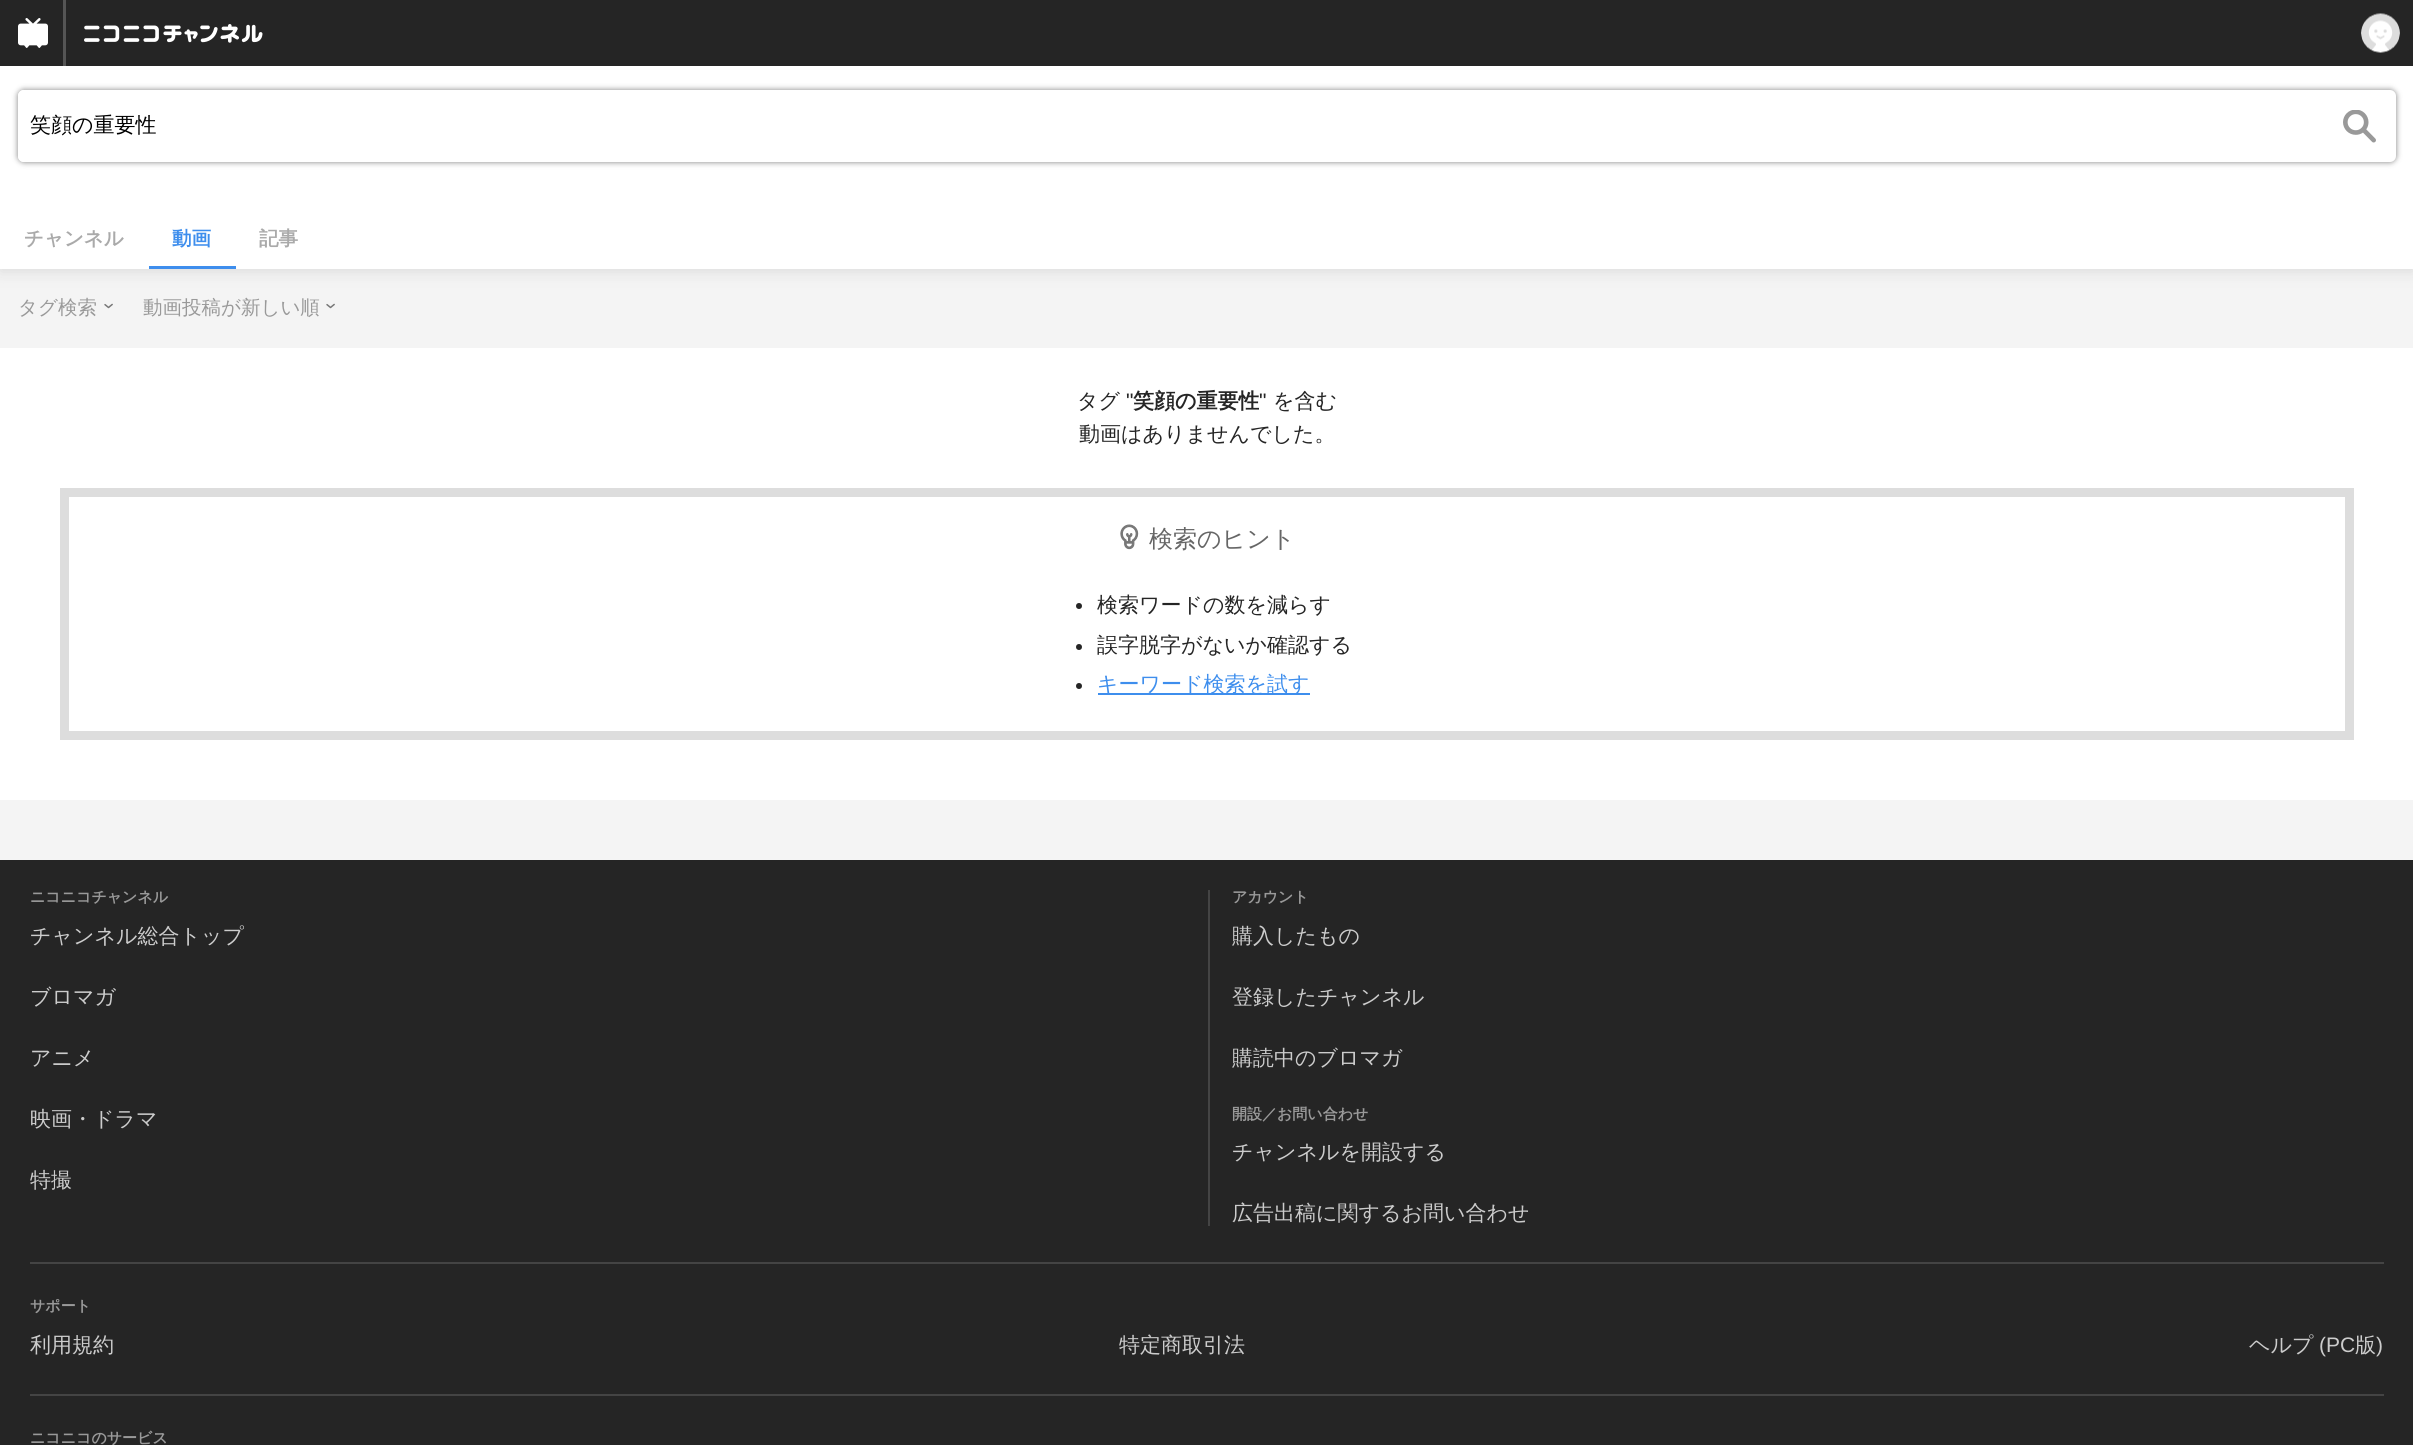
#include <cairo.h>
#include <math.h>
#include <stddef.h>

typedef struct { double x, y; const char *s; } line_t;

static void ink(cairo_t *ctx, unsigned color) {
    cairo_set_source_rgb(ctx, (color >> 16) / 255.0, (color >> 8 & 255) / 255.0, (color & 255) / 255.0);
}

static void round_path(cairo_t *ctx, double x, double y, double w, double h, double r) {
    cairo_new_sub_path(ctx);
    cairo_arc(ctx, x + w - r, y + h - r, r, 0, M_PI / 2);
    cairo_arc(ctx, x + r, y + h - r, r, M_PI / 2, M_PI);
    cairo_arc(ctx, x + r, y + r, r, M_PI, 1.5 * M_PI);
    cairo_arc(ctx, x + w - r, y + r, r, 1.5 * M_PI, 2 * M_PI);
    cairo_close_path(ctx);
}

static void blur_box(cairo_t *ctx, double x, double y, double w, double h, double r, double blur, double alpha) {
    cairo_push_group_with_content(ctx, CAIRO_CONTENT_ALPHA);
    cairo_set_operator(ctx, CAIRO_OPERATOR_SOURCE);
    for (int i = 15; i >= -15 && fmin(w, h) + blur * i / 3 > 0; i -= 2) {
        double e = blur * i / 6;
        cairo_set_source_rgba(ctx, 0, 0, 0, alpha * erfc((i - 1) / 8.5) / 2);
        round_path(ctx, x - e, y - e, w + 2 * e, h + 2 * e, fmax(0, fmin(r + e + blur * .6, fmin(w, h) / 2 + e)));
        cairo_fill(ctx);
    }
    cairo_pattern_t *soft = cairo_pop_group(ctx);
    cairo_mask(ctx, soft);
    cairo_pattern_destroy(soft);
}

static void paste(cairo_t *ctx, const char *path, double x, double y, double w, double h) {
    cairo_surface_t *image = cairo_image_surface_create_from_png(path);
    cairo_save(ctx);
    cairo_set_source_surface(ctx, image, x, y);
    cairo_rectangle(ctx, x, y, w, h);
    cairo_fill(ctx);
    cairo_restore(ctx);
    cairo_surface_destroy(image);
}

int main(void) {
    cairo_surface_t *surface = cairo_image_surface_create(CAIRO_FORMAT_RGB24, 2413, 1445);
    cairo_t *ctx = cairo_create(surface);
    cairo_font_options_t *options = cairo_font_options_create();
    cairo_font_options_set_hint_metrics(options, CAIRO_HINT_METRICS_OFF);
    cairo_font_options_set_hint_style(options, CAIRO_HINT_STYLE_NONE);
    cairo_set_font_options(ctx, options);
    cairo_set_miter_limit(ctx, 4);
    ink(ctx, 0xF4F4F4);
    cairo_paint(ctx);
    ink(ctx, 0x7D7D7D);
    blur_box(ctx, 0, 69, 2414, 203, 0, 7.5, 0.2);
    ink(ctx, 0x252525);
    cairo_rectangle(ctx, 0, 0, 2413, 66);
    cairo_fill(ctx);
    paste(ctx, "media/1.png", 18, 18, 30, 30);
    ink(ctx, 0x555555);
    cairo_rectangle(ctx, 63, 0, 3, 66);
    cairo_fill(ctx);
    paste(ctx, "media/2.png", 84, 24, 179, 19);
    paste(ctx, "media/3.png", 2361, 13, 39, 40);
    ink(ctx, 0xFFFFFF);
    cairo_rectangle(ctx, 0, 66, 2413, 203);
    cairo_fill(ctx);
    ink(ctx, 0x000000);
    blur_box(ctx, 18, 90, 2378, 72, 6, 3, 0.5);
    ink(ctx, 0xFFFFFF);
    round_path(ctx, 18, 90, 2378, 72, 6);
    cairo_fill(ctx);
    cairo_new_path(ctx);
    cairo_move_to(ctx, 24, 90);
    cairo_line_to(ctx, 2324, 90);
    cairo_line_to(ctx, 2324, 162);
    cairo_line_to(ctx, 24, 162);
    cairo_curve_to(ctx, 20.5, 162, 18, 159.5, 18, 156);
    cairo_line_to(ctx, 18, 96);
    cairo_curve_to(ctx, 18, 92.5, 20.5, 90, 24, 90);
    cairo_close_path(ctx);
    cairo_fill(ctx);
    cairo_select_font_face(ctx, "WenQuanYi Zen Hei Medium", CAIRO_FONT_SLANT_NORMAL, CAIRO_FONT_WEIGHT_NORMAL);
    cairo_set_font_size(ctx, 21);
    ink(ctx, 0x000000);
    cairo_move_to(ctx, 30, 132);
    cairo_show_text(ctx, "笑顔の重要性");
    paste(ctx, "media/4.png", 2343, 110, 33, 33);
    cairo_select_font_face(ctx, "WenQuanYi Zen Hei", CAIRO_FONT_SLANT_NORMAL, CAIRO_FONT_WEIGHT_BOLD);
    cairo_set_font_size(ctx, 19.5);
    ink(ctx, 0xAAAAAA);
    cairo_move_to(ctx, 24, 245);
    cairo_show_text(ctx, "チャンネル");
    ink(ctx, 0x3E8EED);
    cairo_rectangle(ctx, 149, 266, 87, 3);
    cairo_fill(ctx);
    cairo_move_to(ctx, 172, 245);
    cairo_show_text(ctx, "動画");
    ink(ctx, 0xAAAAAA);
    cairo_move_to(ctx, 259, 245);
    cairo_show_text(ctx, "記事");
    cairo_select_font_face(ctx, "WenQuanYi Zen Hei Medium", CAIRO_FONT_SLANT_NORMAL, CAIRO_FONT_WEIGHT_NORMAL);
    ink(ctx, 0x999999);
    cairo_move_to(ctx, 18, 314);
    cairo_show_text(ctx, "タグ検索");
    paste(ctx, "media/5.png", 104, 303, 9, 6);
    cairo_move_to(ctx, 143, 314);
    cairo_show_text(ctx, "動画投稿が新しい順");
    paste(ctx, "media/5.png", 326, 303, 9, 6);
    ink(ctx, 0xFFFFFF);
    cairo_rectangle(ctx, 0, 348, 2413, 452);
    cairo_fill(ctx);
    cairo_set_font_size(ctx, 21);
    ink(ctx, 0x252525);
    cairo_move_to(ctx, 1077, 408);
    cairo_show_text(ctx, "タグ");
    cairo_select_font_face(ctx, "Liberation Sans", CAIRO_FONT_SLANT_NORMAL, CAIRO_FONT_WEIGHT_NORMAL);
    cairo_move_to(ctx, 1126, 408);
    cairo_show_text(ctx, "\"");
    cairo_select_font_face(ctx, "WenQuanYi Zen Hei", CAIRO_FONT_SLANT_NORMAL, CAIRO_FONT_WEIGHT_BOLD);
    cairo_move_to(ctx, 1133, 408);
    cairo_show_text(ctx, "笑顔の重要性");
    cairo_select_font_face(ctx, "Liberation Sans", CAIRO_FONT_SLANT_NORMAL, CAIRO_FONT_WEIGHT_NORMAL);
    cairo_move_to(ctx, 1259, 408);
    cairo_show_text(ctx, "\"");
    cairo_select_font_face(ctx, "WenQuanYi Zen Hei Medium", CAIRO_FONT_SLANT_NORMAL, CAIRO_FONT_WEIGHT_NORMAL);
    cairo_move_to(ctx, 1273, 408);
    cairo_show_text(ctx, "を含む");
    cairo_move_to(ctx, 1079, 441);
    cairo_show_text(ctx, "動画はありませんでした。");
    cairo_rectangle(ctx, 64.5, 492.5, 2285, 243);
    ink(ctx, 0xDDDDDD);
    cairo_set_line_width(ctx, 9);
    cairo_stroke(ctx);
    paste(ctx, "media/6.png", 1120, 524, 19, 26);
    cairo_set_font_size(ctx, 24);
    ink(ctx, 0x666666);
    cairo_move_to(ctx, 1149, 547);
    cairo_show_text(ctx, "検索のヒント");
    ink(ctx, 0x252525);
    cairo_new_path(ctx);
    cairo_arc(ctx, 1079, 606, 3, 0, 2 * M_PI);
    cairo_fill(ctx);
    cairo_set_font_size(ctx, 21);
    cairo_move_to(ctx, 1097, 612);
    cairo_show_text(ctx, "検索ワードの数を減らす");
    cairo_new_path(ctx);
    cairo_arc(ctx, 1079, 647, 3, 0, 2 * M_PI);
    cairo_fill(ctx);
    cairo_move_to(ctx, 1097, 652);
    cairo_show_text(ctx, "誤字脱字がないか確認する");
    cairo_new_path(ctx);
    cairo_arc(ctx, 1079, 686, 3, 0, 2 * M_PI);
    cairo_fill(ctx);
    ink(ctx, 0x3E8EED);
    cairo_rectangle(ctx, 1098, 693, 212, 2);
    cairo_fill(ctx);
    cairo_move_to(ctx, 1097, 691);
    cairo_show_text(ctx, "キーワード検索を試す");
    ink(ctx, 0x252525);
    cairo_rectangle(ctx, 0, 860, 2413, 585);
    cairo_fill(ctx);
    cairo_select_font_face(ctx, "WenQuanYi Zen Hei", CAIRO_FONT_SLANT_NORMAL, CAIRO_FONT_WEIGHT_BOLD);
    cairo_set_font_size(ctx, 15);
    ink(ctx, 0x999999);
    cairo_move_to(ctx, 30, 902);
    cairo_show_text(ctx, "ニコニコチャンネル");
    cairo_select_font_face(ctx, "WenQuanYi Zen Hei Medium", CAIRO_FONT_SLANT_NORMAL, CAIRO_FONT_WEIGHT_NORMAL);
    cairo_set_font_size(ctx, 21);
    ink(ctx, 0xCCCCCC);
    {
        static const line_t items[] = {
            {30, 943, "チャンネル総合トップ"},
            {30, 1004, "ブロマガ"},
            {30, 1065, "アニメ"},
            {30, 1126, "映画・ドラマ"},
            {30, 1187, "特撮"},
        };
        for (size_t i = 0; i < sizeof items / sizeof *items; i++) {
            cairo_move_to(ctx, items[i].x, items[i].y);
            cairo_show_text(ctx, items[i].s);
        }
    }
    ink(ctx, 0x444444);
    cairo_rectangle(ctx, 1208, 890, 2, 336);
    cairo_fill(ctx);
    cairo_select_font_face(ctx, "WenQuanYi Zen Hei", CAIRO_FONT_SLANT_NORMAL, CAIRO_FONT_WEIGHT_BOLD);
    cairo_set_font_size(ctx, 15);
    ink(ctx, 0x999999);
    cairo_move_to(ctx, 1232, 902);
    cairo_show_text(ctx, "アカウント");
    cairo_select_font_face(ctx, "WenQuanYi Zen Hei Medium", CAIRO_FONT_SLANT_NORMAL, CAIRO_FONT_WEIGHT_NORMAL);
    cairo_set_font_size(ctx, 21);
    ink(ctx, 0xCCCCCC);
    {
        static const line_t items[] = {
            {1232, 943, "購入したもの"},
            {1232, 1004, "登録したチャンネル"},
            {1232, 1065, "購読中のブロマガ"},
        };
        for (size_t i = 0; i < sizeof items / sizeof *items; i++) {
            cairo_move_to(ctx, items[i].x, items[i].y);
            cairo_show_text(ctx, items[i].s);
        }
    }
    cairo_select_font_face(ctx, "WenQuanYi Zen Hei", CAIRO_FONT_SLANT_NORMAL, CAIRO_FONT_WEIGHT_BOLD);
    cairo_set_font_size(ctx, 15);
    ink(ctx, 0x999999);
    cairo_move_to(ctx, 1232, 1119);
    cairo_show_text(ctx, "開設／お問い合わせ");
    cairo_select_font_face(ctx, "WenQuanYi Zen Hei Medium", CAIRO_FONT_SLANT_NORMAL, CAIRO_FONT_WEIGHT_NORMAL);
    cairo_set_font_size(ctx, 21);
    ink(ctx, 0xCCCCCC);
    cairo_move_to(ctx, 1232, 1159);
    cairo_show_text(ctx, "チャンネルを開設する");
    cairo_move_to(ctx, 1232, 1220);
    cairo_show_text(ctx, "広告出稿に関するお問い合わせ");
    ink(ctx, 0x444444);
    cairo_rectangle(ctx, 30, 1262, 2354, 2);
    cairo_fill(ctx);
    cairo_select_font_face(ctx, "WenQuanYi Zen Hei", CAIRO_FONT_SLANT_NORMAL, CAIRO_FONT_WEIGHT_BOLD);
    cairo_set_font_size(ctx, 15);
    ink(ctx, 0x999999);
    cairo_move_to(ctx, 30, 1311);
    cairo_show_text(ctx, "サポート");
    cairo_select_font_face(ctx, "WenQuanYi Zen Hei Medium", CAIRO_FONT_SLANT_NORMAL, CAIRO_FONT_WEIGHT_NORMAL);
    cairo_set_font_size(ctx, 21);
    ink(ctx, 0xCCCCCC);
    {
        static const line_t items[] = {
            {30, 1352, "利用規約"},
            {1119, 1352, "特定商取引法"},
            {2249, 1352, "ヘルプ"},
        };
        for (size_t i = 0; i < sizeof items / sizeof *items; i++) {
            cairo_move_to(ctx, items[i].x, items[i].y);
            cairo_show_text(ctx, items[i].s);
        }
    }
    cairo_select_font_face(ctx, "Liberation Sans", CAIRO_FONT_SLANT_NORMAL, CAIRO_FONT_WEIGHT_NORMAL);
    cairo_move_to(ctx, 2319, 1352);
    cairo_show_text(ctx, "(PC");
    cairo_select_font_face(ctx, "WenQuanYi Zen Hei Medium", CAIRO_FONT_SLANT_NORMAL, CAIRO_FONT_WEIGHT_NORMAL);
    cairo_move_to(ctx, 2355, 1352);
    cairo_show_text(ctx, "版");
    cairo_select_font_face(ctx, "Liberation Sans", CAIRO_FONT_SLANT_NORMAL, CAIRO_FONT_WEIGHT_NORMAL);
    cairo_move_to(ctx, 2376, 1352);
    cairo_show_text(ctx, ")");
    ink(ctx, 0x444444);
    cairo_rectangle(ctx, 30, 1394, 2354, 2);
    cairo_fill(ctx);
    cairo_select_font_face(ctx, "WenQuanYi Zen Hei", CAIRO_FONT_SLANT_NORMAL, CAIRO_FONT_WEIGHT_BOLD);
    cairo_set_font_size(ctx, 15);
    ink(ctx, 0x999999);
    cairo_move_to(ctx, 30, 1443);
    cairo_show_text(ctx, "ニコニコのサービス");
    cairo_surface_write_to_png(surface, "image.png");
    cairo_font_options_destroy(options);
    cairo_destroy(ctx);
    cairo_surface_destroy(surface);
    return 0;
}
